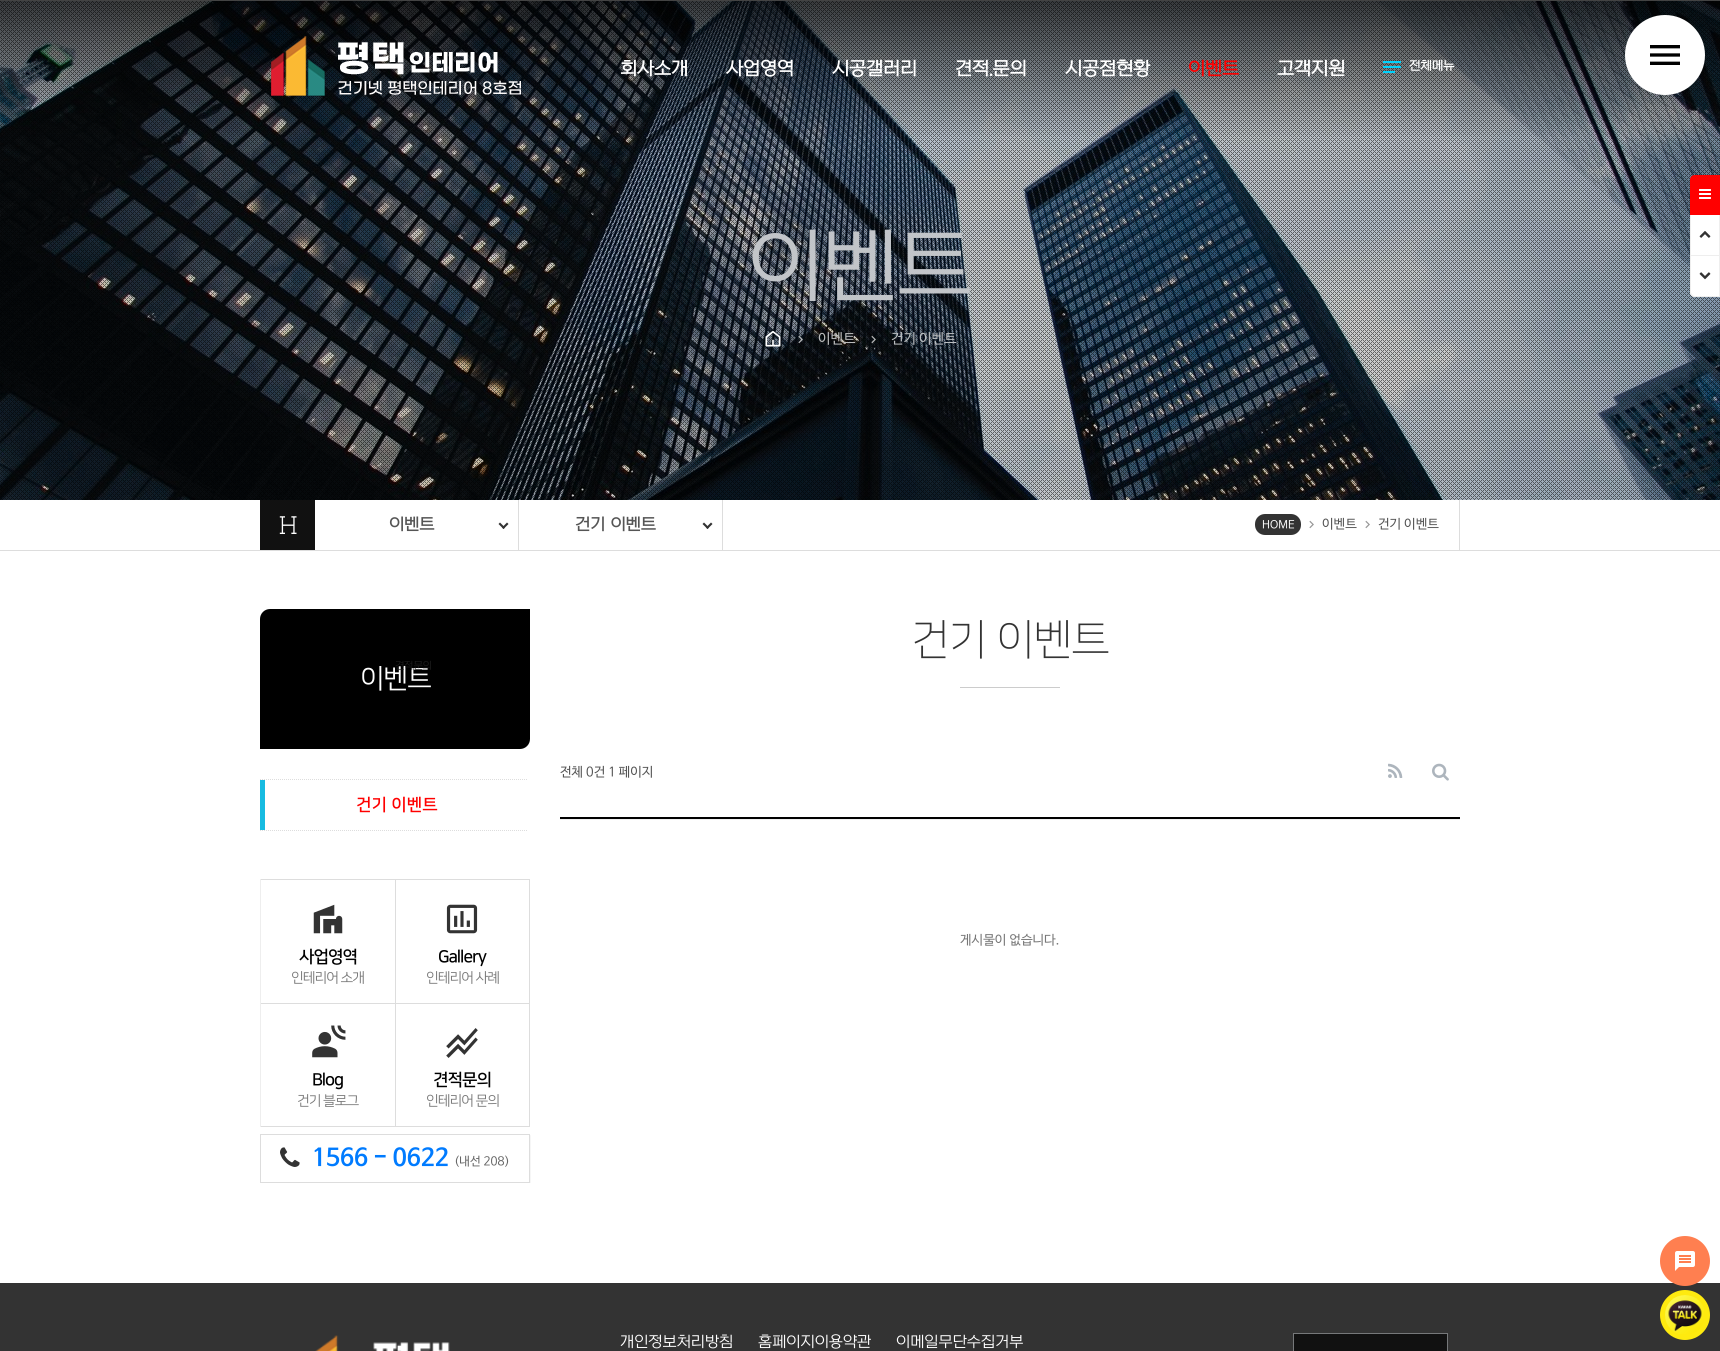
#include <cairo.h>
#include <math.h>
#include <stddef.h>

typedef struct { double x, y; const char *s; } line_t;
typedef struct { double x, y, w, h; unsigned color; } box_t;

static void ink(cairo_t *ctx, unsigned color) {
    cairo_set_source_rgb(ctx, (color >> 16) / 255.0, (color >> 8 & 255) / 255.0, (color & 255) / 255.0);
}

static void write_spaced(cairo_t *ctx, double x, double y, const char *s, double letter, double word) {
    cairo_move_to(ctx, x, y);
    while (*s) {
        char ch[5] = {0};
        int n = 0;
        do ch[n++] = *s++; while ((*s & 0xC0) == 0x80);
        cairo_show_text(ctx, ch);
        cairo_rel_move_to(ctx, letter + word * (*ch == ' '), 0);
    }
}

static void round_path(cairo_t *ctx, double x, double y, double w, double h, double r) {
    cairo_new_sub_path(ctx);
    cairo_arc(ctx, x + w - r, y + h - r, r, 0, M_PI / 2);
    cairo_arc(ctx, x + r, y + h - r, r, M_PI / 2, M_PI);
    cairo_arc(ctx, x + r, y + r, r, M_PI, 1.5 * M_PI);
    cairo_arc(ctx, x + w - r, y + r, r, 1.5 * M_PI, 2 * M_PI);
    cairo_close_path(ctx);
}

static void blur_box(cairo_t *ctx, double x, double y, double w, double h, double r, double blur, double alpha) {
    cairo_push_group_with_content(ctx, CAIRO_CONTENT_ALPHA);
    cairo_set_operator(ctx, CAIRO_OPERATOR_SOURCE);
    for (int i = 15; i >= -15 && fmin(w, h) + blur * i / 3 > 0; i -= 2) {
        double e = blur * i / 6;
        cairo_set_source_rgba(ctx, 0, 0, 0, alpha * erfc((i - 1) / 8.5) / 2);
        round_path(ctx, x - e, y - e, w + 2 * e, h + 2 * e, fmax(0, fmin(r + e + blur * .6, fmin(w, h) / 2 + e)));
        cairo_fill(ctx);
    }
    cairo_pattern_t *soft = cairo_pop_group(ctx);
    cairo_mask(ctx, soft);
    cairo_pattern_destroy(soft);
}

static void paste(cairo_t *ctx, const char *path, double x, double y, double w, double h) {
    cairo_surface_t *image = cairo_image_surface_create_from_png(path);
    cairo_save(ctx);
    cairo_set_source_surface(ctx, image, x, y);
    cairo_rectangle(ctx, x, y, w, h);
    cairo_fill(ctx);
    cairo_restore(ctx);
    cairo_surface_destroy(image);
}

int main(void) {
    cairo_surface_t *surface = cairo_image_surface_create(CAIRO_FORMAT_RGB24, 1720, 1351);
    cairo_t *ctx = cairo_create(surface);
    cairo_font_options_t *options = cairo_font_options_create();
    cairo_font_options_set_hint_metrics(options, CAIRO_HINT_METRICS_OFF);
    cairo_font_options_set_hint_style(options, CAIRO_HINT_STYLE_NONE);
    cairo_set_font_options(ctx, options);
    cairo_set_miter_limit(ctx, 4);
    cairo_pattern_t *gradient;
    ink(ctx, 0xDDDDDD);
    cairo_paint(ctx);
    paste(ctx, "media/7.png", 0, 1, 1720, 499);
    paste(ctx, "media/8.png", 0, 1, 1720, 499);
    gradient = cairo_pattern_create_linear(860, 0, 860, 140);
    cairo_pattern_add_color_stop_rgba(gradient, 0, 0, 0, 0, 0.7);
    cairo_pattern_add_color_stop_rgba(gradient, 1, 0, 0, 0, 0);
    cairo_set_source(ctx, gradient);
    cairo_pattern_destroy(gradient);
    cairo_rectangle(ctx, 0, 0, 1720, 136);
    cairo_fill(ctx);
    paste(ctx, "media/1.png", 271, 36, 250, 60);
    cairo_select_font_face(ctx, "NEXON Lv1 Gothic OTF", CAIRO_FONT_SLANT_NORMAL, CAIRO_FONT_WEIGHT_BOLD);
    cairo_set_font_size(ctx, 18);
    ink(ctx, 0xFFFFFF);
    {
        static const line_t items[] = {
            {620, 75, "회사소개"},
            {726, 75, "사업영역"},
            {832, 75, "시공갤러리"},
            {955, 75, "견적.문의"},
            {1065, 75, "시공점현황"},
        };
        for (size_t i = 0; i < sizeof items / sizeof *items; i++) {
            cairo_move_to(ctx, items[i].x, items[i].y);
            cairo_show_text(ctx, items[i].s);
        }
    }
    ink(ctx, 0xFF0000);
    cairo_move_to(ctx, 1188, 75);
    cairo_show_text(ctx, "이벤트");
    ink(ctx, 0xFFFFFF);
    cairo_move_to(ctx, 1277, 75);
    cairo_show_text(ctx, "고객지원");
    paste(ctx, "media/2.png", 1383, 61, 18, 12);
    cairo_set_font_size(ctx, 12);
    cairo_move_to(ctx, 1409, 70);
    cairo_show_text(ctx, "전체메뉴");
    cairo_new_path(ctx);
    cairo_arc(ctx, 1665, 55, 40, 0, 2 * M_PI);
    cairo_fill(ctx);
    paste(ctx, "media/3.png", 1650, 45, 30, 20);
    ink(ctx, 0xFF0000);
    cairo_new_path(ctx);
    cairo_move_to(ctx, 1695, 175);
    cairo_line_to(ctx, 1720, 175);
    cairo_line_to(ctx, 1720, 215);
    cairo_line_to(ctx, 1690, 215);
    cairo_line_to(ctx, 1690, 180);
    cairo_curve_to(ctx, 1690, 177, 1692, 175, 1695, 175);
    cairo_close_path(ctx);
    cairo_fill(ctx);
    paste(ctx, "media/4.png", 1699, 189, 12, 10);
    {
        static const box_t items[] = {
            {1691, 215, 28, 40, 0xFFFFFF},
            {1719, 215, 1, 41, 0xEEEEEE},
            {1690, 255, 30, 1, 0xEEEEEE},
            {1690, 215, 1, 41, 0xEEEEEE},
        };
        for (size_t i = 0; i < sizeof items / sizeof *items; i++) {
            ink(ctx, items[i].color);
            cairo_rectangle(ctx, items[i].x, items[i].y, items[i].w, items[i].h);
            cairo_fill(ctx);
        }
    }
    paste(ctx, "media/5.png", 1699, 231, 12, 7);
    ink(ctx, 0xFFFFFF);
    cairo_new_path(ctx);
    cairo_move_to(ctx, 1690, 256);
    cairo_line_to(ctx, 1720, 256);
    cairo_line_to(ctx, 1720, 297);
    cairo_line_to(ctx, 1695, 297);
    cairo_curve_to(ctx, 1692, 297, 1690, 295, 1690, 292);
    cairo_close_path(ctx);
    cairo_fill(ctx);
    ink(ctx, 0xEEEEEE);
    cairo_set_fill_rule(ctx, CAIRO_FILL_RULE_EVEN_ODD);
    cairo_new_path(ctx);
    cairo_move_to(ctx, 1690, 256);
    cairo_line_to(ctx, 1720, 256);
    cairo_line_to(ctx, 1720, 297);
    cairo_line_to(ctx, 1695, 297);
    cairo_curve_to(ctx, 1692, 297, 1690, 295, 1690, 292);
    cairo_close_path(ctx);
    cairo_move_to(ctx, 1691, 256);
    cairo_line_to(ctx, 1719, 256);
    cairo_line_to(ctx, 1719, 296);
    cairo_line_to(ctx, 1695, 296);
    cairo_curve_to(ctx, 1693, 296, 1691, 294, 1691, 292);
    cairo_close_path(ctx);
    cairo_fill(ctx);
    paste(ctx, "media/6.png", 1699, 272, 12, 8);
    cairo_select_font_face(ctx, "NEXON Lv1 Gothic OTF", CAIRO_FONT_SLANT_NORMAL, CAIRO_FONT_WEIGHT_NORMAL);
    cairo_set_font_size(ctx, 80);
    ink(ctx, 0xC2C5C9);
    write_spaced(ctx, 748, 295, "이벤트", -1, 0);
    paste(ctx, "media/9.png", 765, 331, 16, 16);
    paste(ctx, "media/10.png", 798, 335, 5, 9);
    cairo_select_font_face(ctx, "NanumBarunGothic", CAIRO_FONT_SLANT_NORMAL, CAIRO_FONT_WEIGHT_NORMAL);
    cairo_set_font_size(ctx, 14);
    ink(ctx, 0xBABBBB);
    cairo_move_to(ctx, 818, 343);
    cairo_show_text(ctx, "이벤트");
    paste(ctx, "media/11.png", 871, 335, 5, 9);
    ink(ctx, 0xBBBEC1);
    cairo_move_to(ctx, 891, 343);
    cairo_show_text(ctx, "건기 이벤트");
    {
        static const box_t items[] = {
            {0, 500, 1720, 783, 0xFFFFFF},
            {0, 550, 1720, 1, 0xDDDDDD},
            {260, 500, 55, 50, 0x111111},
        };
        for (size_t i = 0; i < sizeof items / sizeof *items; i++) {
            ink(ctx, items[i].color);
            cairo_rectangle(ctx, items[i].x, items[i].y, items[i].w, items[i].h);
            cairo_fill(ctx);
        }
    }
    cairo_select_font_face(ctx, "Roboto Slab", CAIRO_FONT_SLANT_NORMAL, CAIRO_FONT_WEIGHT_BOLD);
    cairo_set_font_size(ctx, 24);
    ink(ctx, 0xFFFFFF);
    cairo_move_to(ctx, 279, 534);
    cairo_show_text(ctx, "H");
    ink(ctx, 0xDDDDDD);
    cairo_rectangle(ctx, 518, 500, 1, 50);
    cairo_fill(ctx);
    cairo_select_font_face(ctx, "NEXON Lv1 Gothic OTF", CAIRO_FONT_SLANT_NORMAL, CAIRO_FONT_WEIGHT_BOLD);
    cairo_set_font_size(ctx, 16);
    ink(ctx, 0x555555);
    cairo_move_to(ctx, 389, 530);
    cairo_show_text(ctx, "이벤트");
    ink(ctx, 0x333333);
    cairo_set_fill_rule(ctx, CAIRO_FILL_RULE_WINDING);
    cairo_new_path(ctx);
    cairo_move_to(ctx, 507, 522.5);
    cairo_line_to(ctx, 508.5, 524);
    cairo_line_to(ctx, 503.5, 529);
    cairo_line_to(ctx, 502, 527.5);
    cairo_close_path(ctx);
    cairo_fill(ctx);
    cairo_new_path(ctx);
    cairo_move_to(ctx, 500, 522.5);
    cairo_line_to(ctx, 505, 527.5);
    cairo_line_to(ctx, 503.5, 529);
    cairo_line_to(ctx, 498.5, 524);
    cairo_close_path(ctx);
    cairo_fill(ctx);
    ink(ctx, 0x000000);
    cairo_new_path(ctx);
    cairo_move_to(ctx, 270, 609);
    cairo_line_to(ctx, 530, 609);
    cairo_line_to(ctx, 530, 739);
    cairo_curve_to(ctx, 530, 744.5, 525.5, 749, 520, 749);
    cairo_line_to(ctx, 260, 749);
    cairo_line_to(ctx, 260, 619);
    cairo_curve_to(ctx, 260, 613.5, 264.5, 609, 270, 609);
    cairo_close_path(ctx);
    cairo_fill(ctx);
    cairo_select_font_face(ctx, "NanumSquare", CAIRO_FONT_SLANT_NORMAL, CAIRO_FONT_WEIGHT_NORMAL);
    cairo_set_font_size(ctx, 27);
    ink(ctx, 0xFFFFFF);
    write_spaced(ctx, 360, 687, "이벤트", -1, 0);
    cairo_select_font_face(ctx, "NEXON Lv1 Gothic OTF", CAIRO_FONT_SLANT_NORMAL, CAIRO_FONT_WEIGHT_NORMAL);
    cairo_set_font_size(ctx, 10);
    ink(ctx, 0x1D1D1D);
    write_spaced(ctx, 395, 669, "견적.문의", -0.75, 0);
    ink(ctx, 0xDDDDDD);
    cairo_rectangle(ctx, 722, 500, 1, 50);
    cairo_fill(ctx);
    cairo_select_font_face(ctx, "NEXON Lv1 Gothic OTF", CAIRO_FONT_SLANT_NORMAL, CAIRO_FONT_WEIGHT_BOLD);
    cairo_set_font_size(ctx, 16);
    ink(ctx, 0x555555);
    cairo_move_to(ctx, 575, 530);
    cairo_show_text(ctx, "건기 이벤트");
    ink(ctx, 0x333333);
    cairo_new_path(ctx);
    cairo_move_to(ctx, 711, 522.5);
    cairo_line_to(ctx, 712.5, 524);
    cairo_line_to(ctx, 707.5, 529);
    cairo_line_to(ctx, 706, 527.5);
    cairo_close_path(ctx);
    cairo_fill(ctx);
    cairo_new_path(ctx);
    cairo_move_to(ctx, 704, 522.5);
    cairo_line_to(ctx, 709, 527.5);
    cairo_line_to(ctx, 707.5, 529);
    cairo_line_to(ctx, 702.5, 524);
    cairo_close_path(ctx);
    cairo_fill(ctx);
    ink(ctx, 0xDDDDDD);
    cairo_rectangle(ctx, 1459, 500, 1, 50);
    cairo_fill(ctx);
    ink(ctx, 0x333333);
    round_path(ctx, 1255, 514, 46, 21, 10);
    cairo_fill(ctx);
    cairo_select_font_face(ctx, "NanumBarunGothic", CAIRO_FONT_SLANT_NORMAL, CAIRO_FONT_WEIGHT_NORMAL);
    cairo_set_font_size(ctx, 11);
    ink(ctx, 0xFFFFFF);
    cairo_move_to(ctx, 1262, 528);
    cairo_show_text(ctx, "HOME");
    paste(ctx, "media/12.png", 1309, 520, 5, 9);
    cairo_set_font_size(ctx, 13);
    ink(ctx, 0x555555);
    cairo_move_to(ctx, 1322, 528);
    cairo_show_text(ctx, "이벤트");
    paste(ctx, "media/12.png", 1365, 520, 5, 9);
    cairo_move_to(ctx, 1378, 528);
    cairo_show_text(ctx, "건기 이벤트");
    cairo_new_path(ctx);
    cairo_move_to(ctx, 260, 779.5);
    cairo_line_to(ctx, 528, 779.5);
    ink(ctx, 0xDDDDDD);
    cairo_set_line_width(ctx, 1);
    cairo_set_dash(ctx, (double[]){1, 1}, 2, 0);
    cairo_stroke(ctx);
    cairo_new_path(ctx);
    cairo_move_to(ctx, 260, 830.5);
    cairo_line_to(ctx, 528, 830.5);
    cairo_stroke(ctx);
    ink(ctx, 0x17BBE1);
    cairo_rectangle(ctx, 260, 780, 5, 50);
    cairo_fill(ctx);
    cairo_select_font_face(ctx, "NanumSquare", CAIRO_FONT_SLANT_NORMAL, CAIRO_FONT_WEIGHT_BOLD);
    cairo_set_font_size(ctx, 17);
    ink(ctx, 0xFF0000);
    cairo_move_to(ctx, 356, 810);
    cairo_show_text(ctx, "건기 이벤트");
    {
        static const box_t items[] = {
            {260, 879, 270, 1, 0xDDDDDD},
            {260, 879, 1, 248, 0xEEEEEE},
            {395, 880, 1, 247, 0xDDDDDD},
            {261, 1003, 135, 1, 0xDDDDDD},
        };
        for (size_t i = 0; i < sizeof items / sizeof *items; i++) {
            ink(ctx, items[i].color);
            cairo_rectangle(ctx, items[i].x, items[i].y, items[i].w, items[i].h);
            cairo_fill(ctx);
        }
    }
    paste(ctx, "media/13.png", 313, 904, 30, 30);
    ink(ctx, 0x000000);
    write_spaced(ctx, 299, 962, "사업영역", -1, 0);
    cairo_select_font_face(ctx, "NanumSquare", CAIRO_FONT_SLANT_NORMAL, CAIRO_FONT_WEIGHT_NORMAL);
    cairo_set_font_size(ctx, 14);
    ink(ctx, 0x777777);
    write_spaced(ctx, 291, 982, "인테리어 소개", -1, 0);
    ink(ctx, 0xDDDDDD);
    cairo_rectangle(ctx, 529, 880, 1, 247);
    cairo_fill(ctx);
    cairo_rectangle(ctx, 396, 1003, 134, 1);
    cairo_fill(ctx);
    paste(ctx, "media/14.png", 446, 904, 32, 30);
    cairo_select_font_face(ctx, "NanumSquare", CAIRO_FONT_SLANT_NORMAL, CAIRO_FONT_WEIGHT_BOLD);
    cairo_set_font_size(ctx, 17);
    ink(ctx, 0x000000);
    write_spaced(ctx, 438, 962, "Gallery", -1, 0);
    cairo_select_font_face(ctx, "NanumSquare", CAIRO_FONT_SLANT_NORMAL, CAIRO_FONT_WEIGHT_NORMAL);
    cairo_set_font_size(ctx, 14);
    ink(ctx, 0x777777);
    write_spaced(ctx, 426, 982, "인테리어 사례", -1, 0);
    ink(ctx, 0xDDDDDD);
    cairo_rectangle(ctx, 261, 1126, 269, 1);
    cairo_fill(ctx);
    paste(ctx, "media/15.png", 312, 1025, 34, 33);
    cairo_select_font_face(ctx, "NanumSquare", CAIRO_FONT_SLANT_NORMAL, CAIRO_FONT_WEIGHT_BOLD);
    cairo_set_font_size(ctx, 17);
    ink(ctx, 0x000000);
    write_spaced(ctx, 312, 1085, "Blog", -1, 0);
    cairo_select_font_face(ctx, "NanumSquare", CAIRO_FONT_SLANT_NORMAL, CAIRO_FONT_WEIGHT_NORMAL);
    cairo_set_font_size(ctx, 14);
    ink(ctx, 0x777777);
    write_spaced(ctx, 297, 1105, "건기 블로그", -1, 0);
    paste(ctx, "media/16.png", 446, 1028, 32, 30);
    cairo_select_font_face(ctx, "NanumSquare", CAIRO_FONT_SLANT_NORMAL, CAIRO_FONT_WEIGHT_BOLD);
    cairo_set_font_size(ctx, 17);
    ink(ctx, 0x000000);
    write_spaced(ctx, 433, 1085, "견적문의", -1, 0);
    cairo_select_font_face(ctx, "NanumSquare", CAIRO_FONT_SLANT_NORMAL, CAIRO_FONT_WEIGHT_NORMAL);
    cairo_set_font_size(ctx, 14);
    ink(ctx, 0x777777);
    write_spaced(ctx, 426, 1105, "인테리어 문의", -1, 0);
    cairo_save(ctx);
    cairo_rectangle(ctx, 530, 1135, 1, 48);
    cairo_clip(ctx);
    ink(ctx, 0x000000);
    blur_box(ctx, 260, 1135, 270, 49, 0, 1, 0.1);
    cairo_restore(ctx);
    cairo_rectangle(ctx, 260.5, 1134.5, 269, 48);
    ink(ctx, 0xDDDDDD);
    cairo_set_dash(ctx, NULL, 0, 0);
    cairo_stroke(ctx);
    paste(ctx, "media/17.png", 280, 1147, 20, 20);
    cairo_select_font_face(ctx, "NanumBarunGothic", CAIRO_FONT_SLANT_NORMAL, CAIRO_FONT_WEIGHT_BOLD);
    cairo_set_font_size(ctx, 24);
    ink(ctx, 0x007BFF);
    cairo_move_to(ctx, 312, 1165);
    cairo_show_text(ctx, "1566 - 0622");
    cairo_select_font_face(ctx, "NanumBarunGothic", CAIRO_FONT_SLANT_NORMAL, CAIRO_FONT_WEIGHT_NORMAL);
    cairo_set_font_size(ctx, 12);
    ink(ctx, 0x666666);
    cairo_move_to(ctx, 454, 1165);
    cairo_show_text(ctx, "(내선 208)");
    cairo_select_font_face(ctx, "NanumSquare Light", CAIRO_FONT_SLANT_NORMAL, CAIRO_FONT_WEIGHT_NORMAL);
    cairo_set_font_size(ctx, 42.5);
    ink(ctx, 0x333333);
    write_spaced(ctx, 911, 653, "건기 이벤트", -1, 0);
    ink(ctx, 0xCCCCCC);
    cairo_rectangle(ctx, 960, 687, 100, 1);
    cairo_fill(ctx);
    cairo_select_font_face(ctx, "NanumBarunGothic", CAIRO_FONT_SLANT_NORMAL, CAIRO_FONT_WEIGHT_NORMAL);
    cairo_set_font_size(ctx, 13);
    ink(ctx, 0x555555);
    cairo_move_to(ctx, 560, 776);
    cairo_show_text(ctx, "전체 0건 1 페이지");
    paste(ctx, "media/18.png", 1388, 763, 15, 15);
    paste(ctx, "media/19.png", 1432, 763, 17, 18);
    ink(ctx, 0x000000);
    cairo_rectangle(ctx, 560, 817, 900, 2);
    cairo_fill(ctx);
    ink(ctx, 0xF0F0F0);
    cairo_rectangle(ctx, 560, 819, 900, 1);
    cairo_fill(ctx);
    ink(ctx, 0x777777);
    cairo_move_to(ctx, 960, 944);
    cairo_show_text(ctx, "게시물이 없습니다.");
    ink(ctx, 0x333333);
    cairo_rectangle(ctx, 0, 1283, 1720, 68);
    cairo_fill(ctx);
    ink(ctx, 0xFF7F50);
    cairo_arc(ctx, 1685, 1261, 25, 0, 2 * M_PI);
    cairo_fill(ctx);
    paste(ctx, "media/20.png", 1675, 1251, 20, 20);
    ink(ctx, 0xFEEA0F);
    cairo_arc(ctx, 1685, 1315, 25, 0, 2 * M_PI);
    cairo_fill(ctx);
    paste(ctx, "media/21.png", 1665, 1295, 39, 39);
    paste(ctx, "media/22.png", 315, 1335, 135, 16);
    cairo_select_font_face(ctx, "NEXON Lv1 Gothic OTF", CAIRO_FONT_SLANT_NORMAL, CAIRO_FONT_WEIGHT_NORMAL);
    cairo_set_font_size(ctx, 15);
    ink(ctx, 0xFFFFFF);
    {
        static const line_t items[] = {
            {620, 1347, "개인정보처리방침"},
            {758, 1347, "홈페이지이용약관"},
            {896, 1347, "이메일무단수집거부"},
        };
        for (size_t i = 0; i < sizeof items / sizeof *items; i++) {
            cairo_move_to(ctx, items[i].x, items[i].y);
            cairo_show_text(ctx, items[i].s);
        }
    }
    ink(ctx, 0x111111);
    cairo_rectangle(ctx, 1293.5, 1333.5, 154, 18);
    cairo_fill_preserve(ctx);
    ink(ctx, 0x76787A);
    cairo_stroke(ctx);
    cairo_surface_write_to_png(surface, "image.png");
    cairo_font_options_destroy(options);
    cairo_destroy(ctx);
    cairo_surface_destroy(surface);
    return 0;
}
